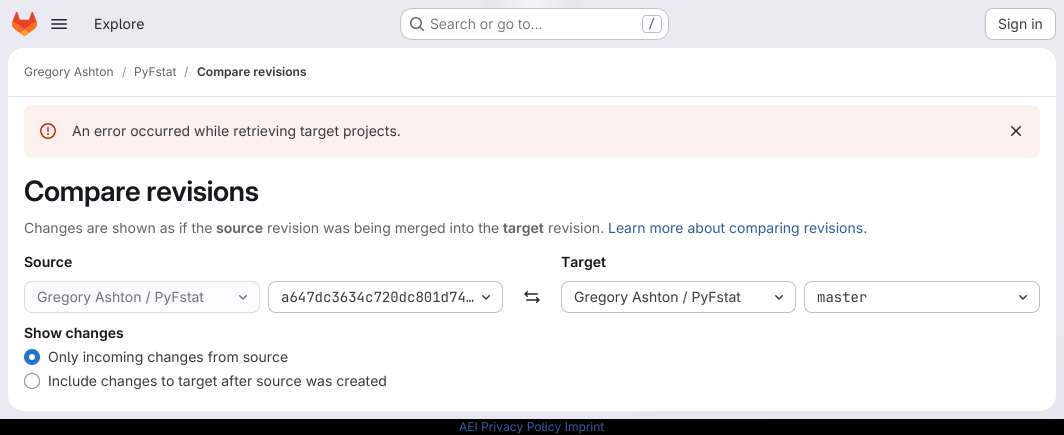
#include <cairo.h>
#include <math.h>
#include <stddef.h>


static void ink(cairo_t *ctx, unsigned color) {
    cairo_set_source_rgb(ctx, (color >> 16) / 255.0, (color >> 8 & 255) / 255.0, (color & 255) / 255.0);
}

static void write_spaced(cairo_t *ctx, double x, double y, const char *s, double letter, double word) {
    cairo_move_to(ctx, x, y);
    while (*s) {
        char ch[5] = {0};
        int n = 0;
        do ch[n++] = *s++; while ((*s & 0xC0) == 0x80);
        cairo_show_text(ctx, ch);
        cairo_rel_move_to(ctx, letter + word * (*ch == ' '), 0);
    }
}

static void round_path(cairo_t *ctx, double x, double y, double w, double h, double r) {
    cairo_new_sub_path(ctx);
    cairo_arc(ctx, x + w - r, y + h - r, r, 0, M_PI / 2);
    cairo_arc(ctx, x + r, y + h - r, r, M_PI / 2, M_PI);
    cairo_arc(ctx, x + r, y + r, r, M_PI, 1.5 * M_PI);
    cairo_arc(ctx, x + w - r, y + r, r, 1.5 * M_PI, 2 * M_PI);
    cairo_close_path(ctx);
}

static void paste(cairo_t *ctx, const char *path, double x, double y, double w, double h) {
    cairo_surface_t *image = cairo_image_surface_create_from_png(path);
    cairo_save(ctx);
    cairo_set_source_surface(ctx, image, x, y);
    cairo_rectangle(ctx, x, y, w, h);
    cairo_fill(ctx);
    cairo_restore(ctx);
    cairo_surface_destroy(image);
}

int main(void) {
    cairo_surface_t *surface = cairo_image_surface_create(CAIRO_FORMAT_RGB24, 1064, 435);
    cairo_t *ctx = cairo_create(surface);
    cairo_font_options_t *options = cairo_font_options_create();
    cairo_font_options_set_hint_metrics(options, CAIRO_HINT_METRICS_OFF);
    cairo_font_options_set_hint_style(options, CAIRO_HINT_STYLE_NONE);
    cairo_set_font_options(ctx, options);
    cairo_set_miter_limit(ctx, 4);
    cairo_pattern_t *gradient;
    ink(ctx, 0xFFFFFF);
    cairo_paint(ctx);
    gradient = cairo_pattern_create_linear(585, 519, 479, -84);
    cairo_pattern_add_color_stop_rgba(gradient, 0, 0.91, 0.902, 0.941, 1);
    cairo_pattern_add_color_stop_rgba(gradient, 0.7, 0.918, 0.914, 0.949, 1);
    cairo_set_source(ctx, gradient);
    cairo_pattern_destroy(gradient);
    cairo_rectangle(ctx, 0, 0, 1064, 419);
    cairo_fill(ctx);
    gradient = cairo_pattern_create_radial(0, 0, 0, 0, 0, 1);
    cairo_pattern_set_matrix(gradient, &(cairo_matrix_t){1.0 / 532, 0, 0, 1.0 / 435, -1.0 * 532 / 532, -1.0 * 0 / 435});
    cairo_pattern_add_color_stop_rgba(gradient, 0, 0.894, 0.886, 0.929, 1);
    cairo_pattern_add_color_stop_rgba(gradient, 0.13, 0.894, 0.886, 0.929, 0);
    cairo_set_source(ctx, gradient);
    cairo_pattern_destroy(gradient);
    cairo_rectangle(ctx, 482, 0, 100, 40);
    cairo_fill(ctx);
    gradient = cairo_pattern_create_radial(0, 0, 0, 0, 0, 1);
    cairo_pattern_set_matrix(gradient, &(cairo_matrix_t){1.0 / 532, 0, 0, 1.0 / 435, -1.0 * 532 / 532, -1.0 * 0 / 435});
    cairo_pattern_add_color_stop_rgba(gradient, 0, 0.894, 0.886, 0.925, 1);
    cairo_pattern_add_color_stop_rgba(gradient, 0.09, 0.894, 0.886, 0.925, 0);
    cairo_set_source(ctx, gradient);
    cairo_pattern_destroy(gradient);
    cairo_rectangle(ctx, 515, 4, 1, 1);
    cairo_fill(ctx);
    gradient = cairo_pattern_create_radial(532, 0, 0, 532, 0, 687);
    cairo_pattern_add_color_stop_rgba(gradient, 0, 1, 1, 1, 0.6);
    cairo_pattern_add_color_stop_rgba(gradient, 0.06, 1, 1, 1, 0);
    cairo_set_source(ctx, gradient);
    cairo_pattern_destroy(gradient);
    cairo_rectangle(ctx, 492, 0, 80, 8);
    cairo_fill(ctx);
    paste(ctx, "media/1.png", 12, 12, 25, 24);
    paste(ctx, "media/2.png", 51, 19, 16, 10);
    cairo_select_font_face(ctx, "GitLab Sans", CAIRO_FONT_SLANT_NORMAL, CAIRO_FONT_WEIGHT_NORMAL);
    cairo_set_font_size(ctx, 14);
    ink(ctx, 0x28272D);
    cairo_move_to(ctx, 94, 29);
    cairo_show_text(ctx, "Explore");
    ink(ctx, 0xFFFFFF);
    round_path(ctx, 400, 8, 269, 32, 12);
    cairo_fill(ctx);
    round_path(ctx, 400.5, 8.5, 268, 31, 11.5);
    cairo_set_source_rgba(ctx, 0.02, 0.02, 0.024, 0.24);
    cairo_set_line_width(ctx, 1);
    cairo_stroke(ctx);
    paste(ctx, "media/3.png", 410, 17, 14, 14);
    cairo_select_font_face(ctx, "GitLab Sans Light", CAIRO_FONT_SLANT_NORMAL, CAIRO_FONT_WEIGHT_NORMAL);
    ink(ctx, 0x626168);
    cairo_move_to(ctx, 430, 29);
    cairo_show_text(ctx, "Search or go to…");
    ink(ctx, 0xFBFAFD);
    round_path(ctx, 642.5, 15.5, 19, 17, 3.5);
    cairo_fill_preserve(ctx);
    ink(ctx, 0xBFBFC3);
    cairo_stroke(ctx);
    cairo_select_font_face(ctx, "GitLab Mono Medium", CAIRO_FONT_SLANT_NORMAL, CAIRO_FONT_WEIGHT_NORMAL);
    cairo_set_font_size(ctx, 12);
    ink(ctx, 0x626168);
    cairo_move_to(ctx, 648, 28);
    cairo_show_text(ctx, "/");
    ink(ctx, 0xFFFFFF);
    round_path(ctx, 985.5, 8.5, 70, 31, 7.5);
    cairo_fill_preserve(ctx);
    ink(ctx, 0xBFBFC3);
    cairo_stroke(ctx);
    cairo_select_font_face(ctx, "GitLab Sans", CAIRO_FONT_SLANT_NORMAL, CAIRO_FONT_WEIGHT_NORMAL);
    cairo_set_font_size(ctx, 14);
    ink(ctx, 0x3A383F);
    cairo_move_to(ctx, 998, 29);
    cairo_show_text(ctx, "Sign in");
    ink(ctx, 0xFFFFFF);
    round_path(ctx, 8, 48, 1048, 363, 16);
    cairo_fill(ctx);
    cairo_new_path(ctx);
    cairo_move_to(ctx, 24, 48);
    cairo_line_to(ctx, 1040, 48);
    cairo_curve_to(ctx, 1049, 48, 1056, 55, 1056, 64);
    cairo_line_to(ctx, 1056, 97);
    cairo_line_to(ctx, 8, 97);
    cairo_line_to(ctx, 8, 64);
    cairo_curve_to(ctx, 8, 55, 15, 48, 24, 48);
    cairo_close_path(ctx);
    cairo_fill(ctx);
    ink(ctx, 0xE1DFEC);
    cairo_rectangle(ctx, 8, 96, 1048, 1);
    cairo_fill(ctx);
    cairo_set_font_size(ctx, 12);
    ink(ctx, 0x626168);
    cairo_move_to(ctx, 24, 76);
    cairo_show_text(ctx, "Gregory Ashton");
    ink(ctx, 0x89888D);
    cairo_move_to(ctx, 122, 76);
    cairo_show_text(ctx, "/");
    ink(ctx, 0x626168);
    cairo_move_to(ctx, 134, 76);
    cairo_show_text(ctx, "PyFstat");
    ink(ctx, 0x89888D);
    cairo_move_to(ctx, 184, 76);
    cairo_show_text(ctx, "/");
    cairo_select_font_face(ctx, "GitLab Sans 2 SemiBold", CAIRO_FONT_SLANT_NORMAL, CAIRO_FONT_WEIGHT_NORMAL);
    ink(ctx, 0x3A383F);
    cairo_move_to(ctx, 197, 76);
    cairo_show_text(ctx, "Compare revisions");
    ink(ctx, 0xFCF1EF);
    round_path(ctx, 24, 105, 1016, 53, 8);
    cairo_fill(ctx);
    paste(ctx, "media/4.png", 40, 123, 16, 16);
    cairo_select_font_face(ctx, "GitLab Sans", CAIRO_FONT_SLANT_NORMAL, CAIRO_FONT_WEIGHT_NORMAL);
    cairo_set_font_size(ctx, 14);
    ink(ctx, 0x3A383F);
    cairo_move_to(ctx, 72, 136);
    cairo_show_text(ctx, "An error occurred while retrieving target projects.");
    paste(ctx, "media/5.png", 1011, 126, 10, 10);
    cairo_select_font_face(ctx, "GitLab Sans SemiBold", CAIRO_FONT_SLANT_NORMAL, CAIRO_FONT_WEIGHT_NORMAL);
    cairo_set_font_size(ctx, 28);
    ink(ctx, 0x18171D);
    write_spaced(ctx, 24, 201, "Compare revisions", -0.25, 0);
    cairo_select_font_face(ctx, "GitLab Sans", CAIRO_FONT_SLANT_NORMAL, CAIRO_FONT_WEIGHT_NORMAL);
    cairo_set_font_size(ctx, 14);
    ink(ctx, 0x626168);
    cairo_move_to(ctx, 24, 233);
    cairo_show_text(ctx, "Changes are shown as if the");
    cairo_select_font_face(ctx, "GitLab Sans 2 SemiBold", CAIRO_FONT_SLANT_NORMAL, CAIRO_FONT_WEIGHT_NORMAL);
    cairo_move_to(ctx, 216, 233);
    cairo_show_text(ctx, "source");
    cairo_select_font_face(ctx, "GitLab Sans", CAIRO_FONT_SLANT_NORMAL, CAIRO_FONT_WEIGHT_NORMAL);
    cairo_move_to(ctx, 267, 233);
    cairo_show_text(ctx, "revision was being merged into the");
    cairo_select_font_face(ctx, "GitLab Sans 2 SemiBold", CAIRO_FONT_SLANT_NORMAL, CAIRO_FONT_WEIGHT_NORMAL);
    cairo_move_to(ctx, 503, 233);
    cairo_show_text(ctx, "target");
    cairo_select_font_face(ctx, "GitLab Sans", CAIRO_FONT_SLANT_NORMAL, CAIRO_FONT_WEIGHT_NORMAL);
    cairo_move_to(ctx, 548, 233);
    cairo_show_text(ctx, "revision.");
    ink(ctx, 0x2F5CA0);
    cairo_move_to(ctx, 608, 233);
    cairo_show_text(ctx, "Learn more about comparing revisions.");
    cairo_select_font_face(ctx, "GitLab Sans 2 SemiBold", CAIRO_FONT_SLANT_NORMAL, CAIRO_FONT_WEIGHT_NORMAL);
    ink(ctx, 0x18171D);
    cairo_move_to(ctx, 24, 267);
    cairo_show_text(ctx, "Source");
    ink(ctx, 0xFBFAFD);
    round_path(ctx, 24.5, 281.5, 235, 31, 7.5);
    cairo_fill_preserve(ctx);
    ink(ctx, 0xDCDCDE);
    cairo_stroke(ctx);
    cairo_select_font_face(ctx, "GitLab Sans", CAIRO_FONT_SLANT_NORMAL, CAIRO_FONT_WEIGHT_NORMAL);
    ink(ctx, 0x737278);
    cairo_move_to(ctx, 37, 302);
    cairo_show_text(ctx, "Gregory Ashton / PyFstat");
    paste(ctx, "media/6.png", 239, 295, 8, 5);
    round_path(ctx, 268.5, 281.5, 234, 31, 7.5);
    ink(ctx, 0xBFBFC3);
    cairo_stroke(ctx);
    cairo_select_font_face(ctx, "GitLab Mono", CAIRO_FONT_SLANT_NORMAL, CAIRO_FONT_WEIGHT_NORMAL);
    ink(ctx, 0x3A383F);
    cairo_move_to(ctx, 281, 302);
    cairo_show_text(ctx, "a647dc3634c720dc801d74…");
    paste(ctx, "media/7.png", 482, 295, 8, 5);
    paste(ctx, "media/8.png", 524, 291, 16, 12);
    cairo_select_font_face(ctx, "GitLab Sans 2 SemiBold", CAIRO_FONT_SLANT_NORMAL, CAIRO_FONT_WEIGHT_NORMAL);
    ink(ctx, 0x18171D);
    cairo_move_to(ctx, 561, 267);
    cairo_show_text(ctx, "Target");
    round_path(ctx, 561.5, 281.5, 234, 31, 7.5);
    ink(ctx, 0xBFBFC3);
    cairo_stroke(ctx);
    cairo_select_font_face(ctx, "GitLab Sans", CAIRO_FONT_SLANT_NORMAL, CAIRO_FONT_WEIGHT_NORMAL);
    ink(ctx, 0x3A383F);
    cairo_move_to(ctx, 574, 302);
    cairo_show_text(ctx, "Gregory Ashton / PyFstat");
    paste(ctx, "media/7.png", 775, 295, 8, 5);
    round_path(ctx, 804.5, 281.5, 235, 31, 7.5);
    ink(ctx, 0xBFBFC3);
    cairo_stroke(ctx);
    cairo_select_font_face(ctx, "GitLab Mono", CAIRO_FONT_SLANT_NORMAL, CAIRO_FONT_WEIGHT_NORMAL);
    ink(ctx, 0x3A383F);
    cairo_move_to(ctx, 817, 302);
    cairo_show_text(ctx, "master");
    paste(ctx, "media/7.png", 1019, 295, 8, 5);
    cairo_select_font_face(ctx, "GitLab Sans 2 SemiBold", CAIRO_FONT_SLANT_NORMAL, CAIRO_FONT_WEIGHT_NORMAL);
    ink(ctx, 0x18171D);
    cairo_move_to(ctx, 24, 338);
    cairo_show_text(ctx, "Show changes");
    ink(ctx, 0x1F75CB);
    cairo_new_path(ctx);
    cairo_arc(ctx, 32, 357, 7.5, 0, 2 * M_PI);
    cairo_fill_preserve(ctx);
    cairo_stroke(ctx);
    cairo_select_font_face(ctx, "GitLab Sans", CAIRO_FONT_SLANT_NORMAL, CAIRO_FONT_WEIGHT_NORMAL);
    ink(ctx, 0x3A383F);
    cairo_move_to(ctx, 48, 362);
    cairo_show_text(ctx, "Only incoming changes from source");
    ink(ctx, 0xFFFFFF);
    cairo_new_path(ctx);
    cairo_arc(ctx, 32, 357, 3, 0, 2 * M_PI);
    cairo_fill(ctx);
    cairo_arc(ctx, 32, 381, 7.5, 0, 2 * M_PI);
    ink(ctx, 0x89888D);
    cairo_stroke(ctx);
    ink(ctx, 0x3A383F);
    cairo_move_to(ctx, 48, 386);
    cairo_show_text(ctx, "Include changes to target after source was created");
    ink(ctx, 0x000000);
    cairo_rectangle(ctx, 0, 419, 1064, 16);
    cairo_fill(ctx);
    cairo_set_font_size(ctx, 12);
    ink(ctx, 0x2F5CA0);
    cairo_move_to(ctx, 459, 431);
    cairo_show_text(ctx, "AEI Privacy Policy Imprint");
    cairo_surface_write_to_png(surface, "image.png");
    cairo_font_options_destroy(options);
    cairo_destroy(ctx);
    cairo_surface_destroy(surface);
    return 0;
}
